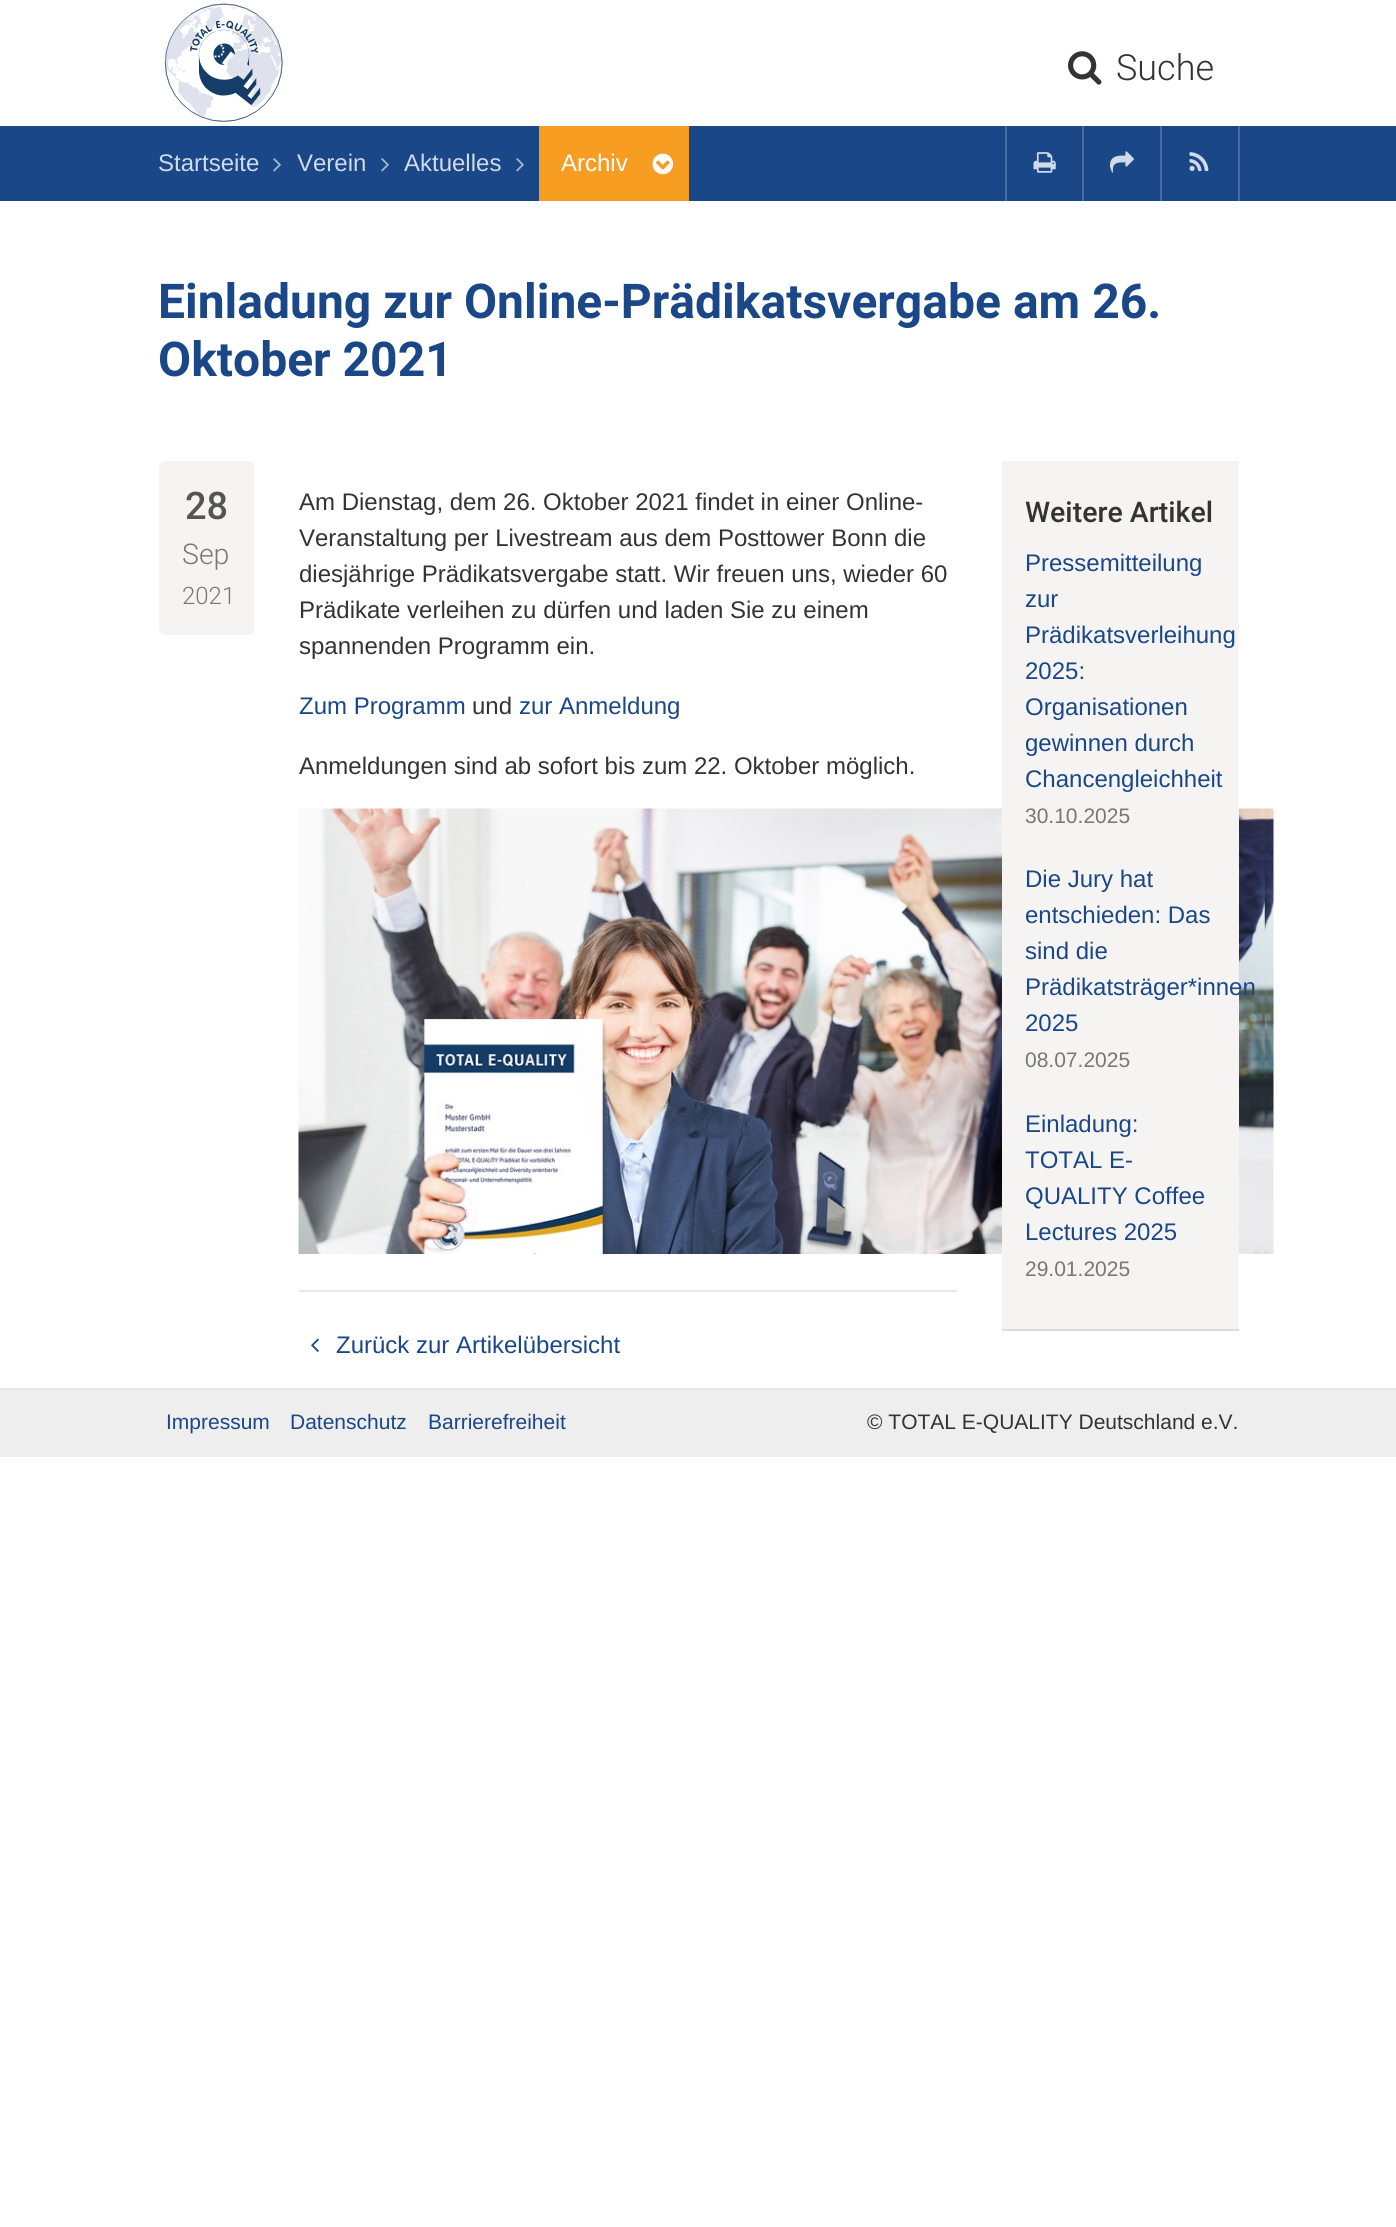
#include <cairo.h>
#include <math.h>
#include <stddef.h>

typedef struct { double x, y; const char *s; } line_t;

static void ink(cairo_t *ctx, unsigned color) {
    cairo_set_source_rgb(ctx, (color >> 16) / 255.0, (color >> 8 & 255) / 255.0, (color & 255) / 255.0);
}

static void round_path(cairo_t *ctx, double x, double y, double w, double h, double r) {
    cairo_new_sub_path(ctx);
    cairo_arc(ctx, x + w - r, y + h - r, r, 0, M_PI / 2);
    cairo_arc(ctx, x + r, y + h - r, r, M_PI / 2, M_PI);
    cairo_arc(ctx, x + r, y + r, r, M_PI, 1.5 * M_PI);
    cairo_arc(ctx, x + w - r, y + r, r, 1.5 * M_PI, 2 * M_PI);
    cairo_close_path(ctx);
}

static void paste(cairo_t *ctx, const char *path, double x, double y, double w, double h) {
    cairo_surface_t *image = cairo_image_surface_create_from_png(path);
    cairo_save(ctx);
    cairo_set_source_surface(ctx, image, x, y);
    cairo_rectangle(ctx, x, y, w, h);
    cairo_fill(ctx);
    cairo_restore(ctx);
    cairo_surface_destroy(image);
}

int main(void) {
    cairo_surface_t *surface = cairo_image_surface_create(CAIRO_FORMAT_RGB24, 1396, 2227);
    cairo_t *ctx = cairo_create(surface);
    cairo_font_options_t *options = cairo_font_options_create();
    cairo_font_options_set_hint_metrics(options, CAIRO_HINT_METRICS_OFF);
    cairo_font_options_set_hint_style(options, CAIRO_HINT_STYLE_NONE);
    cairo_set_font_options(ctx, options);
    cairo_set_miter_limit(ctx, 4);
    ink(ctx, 0xFFFFFF);
    cairo_paint(ctx);
    paste(ctx, "media/1.png", 164, 3, 119, 119);
    paste(ctx, "media/2.png", 1068, 51, 34, 34);
    cairo_select_font_face(ctx, "Roboto Light", CAIRO_FONT_SLANT_NORMAL, CAIRO_FONT_WEIGHT_NORMAL);
    cairo_set_font_size(ctx, 36);
    ink(ctx, 0x333333);
    cairo_move_to(ctx, 1116, 80);
    cairo_show_text(ctx, "Suche");
    ink(ctx, 0x1A4787);
    cairo_rectangle(ctx, 0, 126, 1396, 75);
    cairo_fill(ctx);
    cairo_select_font_face(ctx, "Liberation Sans", CAIRO_FONT_SLANT_NORMAL, CAIRO_FONT_WEIGHT_NORMAL);
    cairo_set_font_size(ctx, 24);
    ink(ctx, 0xD1DAE7);
    cairo_move_to(ctx, 158, 171);
    cairo_show_text(ctx, "Startseite");
    paste(ctx, "media/3.png", 273, 158, 8, 14);
    cairo_move_to(ctx, 297, 171);
    cairo_show_text(ctx, "Verein");
    paste(ctx, "media/3.png", 381, 158, 8, 14);
    cairo_move_to(ctx, 404, 171);
    cairo_show_text(ctx, "Aktuelles");
    paste(ctx, "media/3.png", 516, 158, 8, 14);
    ink(ctx, 0xF69D22);
    cairo_rectangle(ctx, 539, 126, 150, 75);
    cairo_fill(ctx);
    ink(ctx, 0xFFFFFF);
    cairo_move_to(ctx, 561, 171);
    cairo_show_text(ctx, "Archiv");
    paste(ctx, "media/4.png", 652, 153, 22, 22);
    ink(ctx, 0x486C9F);
    cairo_rectangle(ctx, 1005, 126, 2, 75);
    cairo_fill(ctx);
    paste(ctx, "media/5.png", 1033, 152, 23, 21);
    cairo_rectangle(ctx, 1082, 126, 2, 75);
    cairo_fill(ctx);
    paste(ctx, "media/6.png", 1110, 151, 24, 22);
    cairo_rectangle(ctx, 1238, 126, 2, 75);
    cairo_fill(ctx);
    cairo_rectangle(ctx, 1160, 126, 2, 75);
    cairo_fill(ctx);
    paste(ctx, "media/7.png", 1189, 152, 20, 19);
    cairo_select_font_face(ctx, "Roboto", CAIRO_FONT_SLANT_NORMAL, CAIRO_FONT_WEIGHT_BOLD);
    cairo_set_font_size(ctx, 48);
    ink(ctx, 0x1A4787);
    cairo_move_to(ctx, 158, 318);
    cairo_show_text(ctx, "Einladung zur Online-Prädikatsvergabe am 26.");
    cairo_move_to(ctx, 158, 376);
    cairo_show_text(ctx, "Oktober 2021");
    ink(ctx, 0xF5F4F3);
    round_path(ctx, 159, 461, 95, 174, 6);
    cairo_fill(ctx);
    cairo_select_font_face(ctx, "Roboto Medium", CAIRO_FONT_SLANT_NORMAL, CAIRO_FONT_WEIGHT_NORMAL);
    cairo_set_font_size(ctx, 38);
    ink(ctx, 0x555555);
    cairo_move_to(ctx, 185, 519);
    cairo_show_text(ctx, "28");
    cairo_select_font_face(ctx, "Roboto Light", CAIRO_FONT_SLANT_NORMAL, CAIRO_FONT_WEIGHT_NORMAL);
    cairo_set_font_size(ctx, 28.5);
    ink(ctx, 0x777777);
    cairo_move_to(ctx, 182, 564);
    cairo_show_text(ctx, "Sep");
    cairo_set_font_size(ctx, 24);
    cairo_move_to(ctx, 182, 604);
    cairo_show_text(ctx, "2021");
    cairo_select_font_face(ctx, "Liberation Sans", CAIRO_FONT_SLANT_NORMAL, CAIRO_FONT_WEIGHT_NORMAL);
    ink(ctx, 0x333333);
    {
        static const line_t items[] = {
            {299, 510, "Am Dienstag, dem 26. Oktober 2021 findet in einer Online-"},
            {299, 546, "Veranstaltung per Livestream aus dem Posttower Bonn die"},
            {299, 582, "diesjährige Prädikatsvergabe statt. Wir freuen uns, wieder 60"},
            {299, 618, "Prädikate verleihen zu dürfen und laden Sie zu einem"},
            {299, 654, "spannenden Programm ein."},
        };
        for (size_t i = 0; i < sizeof items / sizeof *items; i++) {
            cairo_move_to(ctx, items[i].x, items[i].y);
            cairo_show_text(ctx, items[i].s);
        }
    }
    ink(ctx, 0x1A4787);
    cairo_move_to(ctx, 299, 714);
    cairo_show_text(ctx, "Zum Programm");
    ink(ctx, 0x333333);
    cairo_move_to(ctx, 472, 714);
    cairo_show_text(ctx, "und");
    ink(ctx, 0x1A4787);
    cairo_move_to(ctx, 519, 714);
    cairo_show_text(ctx, "zur Anmeldung");
    ink(ctx, 0x333333);
    cairo_move_to(ctx, 299, 774);
    cairo_show_text(ctx, "Anmeldungen sind ab sofort bis zum 22. Oktober möglich.");
    paste(ctx, "media/8.png", 298, 808, 976, 446);
    ink(ctx, 0xE7E7E7);
    cairo_rectangle(ctx, 299, 1290, 658, 2);
    cairo_fill(ctx);
    paste(ctx, "media/9.png", 311, 1338, 8, 14);
    ink(ctx, 0x1A4787);
    cairo_move_to(ctx, 336, 1353);
    cairo_show_text(ctx, "Zurück zur Artikelübersicht");
    ink(ctx, 0xF5F4F3);
    cairo_rectangle(ctx, 1002, 461, 237, 868);
    cairo_fill(ctx);
    ink(ctx, 0xDDDDDD);
    cairo_rectangle(ctx, 1002, 1329, 237, 2);
    cairo_fill(ctx);
    cairo_select_font_face(ctx, "Roboto Medium", CAIRO_FONT_SLANT_NORMAL, CAIRO_FONT_WEIGHT_NORMAL);
    cairo_set_font_size(ctx, 28.5);
    ink(ctx, 0x333333);
    cairo_move_to(ctx, 1025, 522);
    cairo_show_text(ctx, "Weitere Artikel");
    cairo_select_font_face(ctx, "Liberation Sans", CAIRO_FONT_SLANT_NORMAL, CAIRO_FONT_WEIGHT_NORMAL);
    cairo_set_font_size(ctx, 24);
    ink(ctx, 0x1A4787);
    {
        static const line_t items[] = {
            {1025, 571, "Pressemitteilung"},
            {1025, 607, "zur"},
            {1025, 643, "Prädikatsverleihung"},
            {1025, 679, "2025:"},
            {1025, 715, "Organisationen"},
            {1025, 751, "gewinnen durch"},
            {1025, 787, "Chancengleichheit"},
        };
        for (size_t i = 0; i < sizeof items / sizeof *items; i++) {
            cairo_move_to(ctx, items[i].x, items[i].y);
            cairo_show_text(ctx, items[i].s);
        }
    }
    cairo_set_font_size(ctx, 21);
    ink(ctx, 0x777777);
    cairo_move_to(ctx, 1025, 823);
    cairo_show_text(ctx, "30.10.2025");
    cairo_set_font_size(ctx, 24);
    ink(ctx, 0x1A4787);
    {
        static const line_t items[] = {
            {1025, 887, "Die Jury hat"},
            {1025, 923, "entschieden: Das"},
            {1025, 959, "sind die"},
            {1025, 995, "Prädikatsträger*innen"},
            {1025, 1031, "2025"},
        };
        for (size_t i = 0; i < sizeof items / sizeof *items; i++) {
            cairo_move_to(ctx, items[i].x, items[i].y);
            cairo_show_text(ctx, items[i].s);
        }
    }
    cairo_set_font_size(ctx, 21);
    ink(ctx, 0x777777);
    cairo_move_to(ctx, 1025, 1067);
    cairo_show_text(ctx, "08.07.2025");
    cairo_set_font_size(ctx, 24);
    ink(ctx, 0x1A4787);
    {
        static const line_t items[] = {
            {1025, 1132, "Einladung:"},
            {1025, 1168, "TOTAL E-"},
            {1025, 1204, "QUALITY Coffee"},
            {1025, 1240, "Lectures 2025"},
        };
        for (size_t i = 0; i < sizeof items / sizeof *items; i++) {
            cairo_move_to(ctx, items[i].x, items[i].y);
            cairo_show_text(ctx, items[i].s);
        }
    }
    cairo_set_font_size(ctx, 21);
    ink(ctx, 0x777777);
    cairo_move_to(ctx, 1025, 1276);
    cairo_show_text(ctx, "29.01.2025");
    ink(ctx, 0xEEEEEE);
    cairo_rectangle(ctx, 0, 1390, 1396, 67);
    cairo_fill(ctx);
    ink(ctx, 0xE7E7E7);
    cairo_rectangle(ctx, 0, 1388, 1396, 2);
    cairo_fill(ctx);
    ink(ctx, 0x1A4787);
    {
        static const line_t items[] = {
            {166, 1429, "Impressum"},
            {290, 1429, "Datenschutz"},
            {428, 1429, "Barrierefreiheit"},
        };
        for (size_t i = 0; i < sizeof items / sizeof *items; i++) {
            cairo_move_to(ctx, items[i].x, items[i].y);
            cairo_show_text(ctx, items[i].s);
        }
    }
    ink(ctx, 0x333333);
    cairo_move_to(ctx, 867, 1429);
    cairo_show_text(ctx, "© TOTAL E-QUALITY Deutschland e.V.");
    cairo_surface_write_to_png(surface, "image.png");
    cairo_font_options_destroy(options);
    cairo_destroy(ctx);
    cairo_surface_destroy(surface);
    return 0;
}
